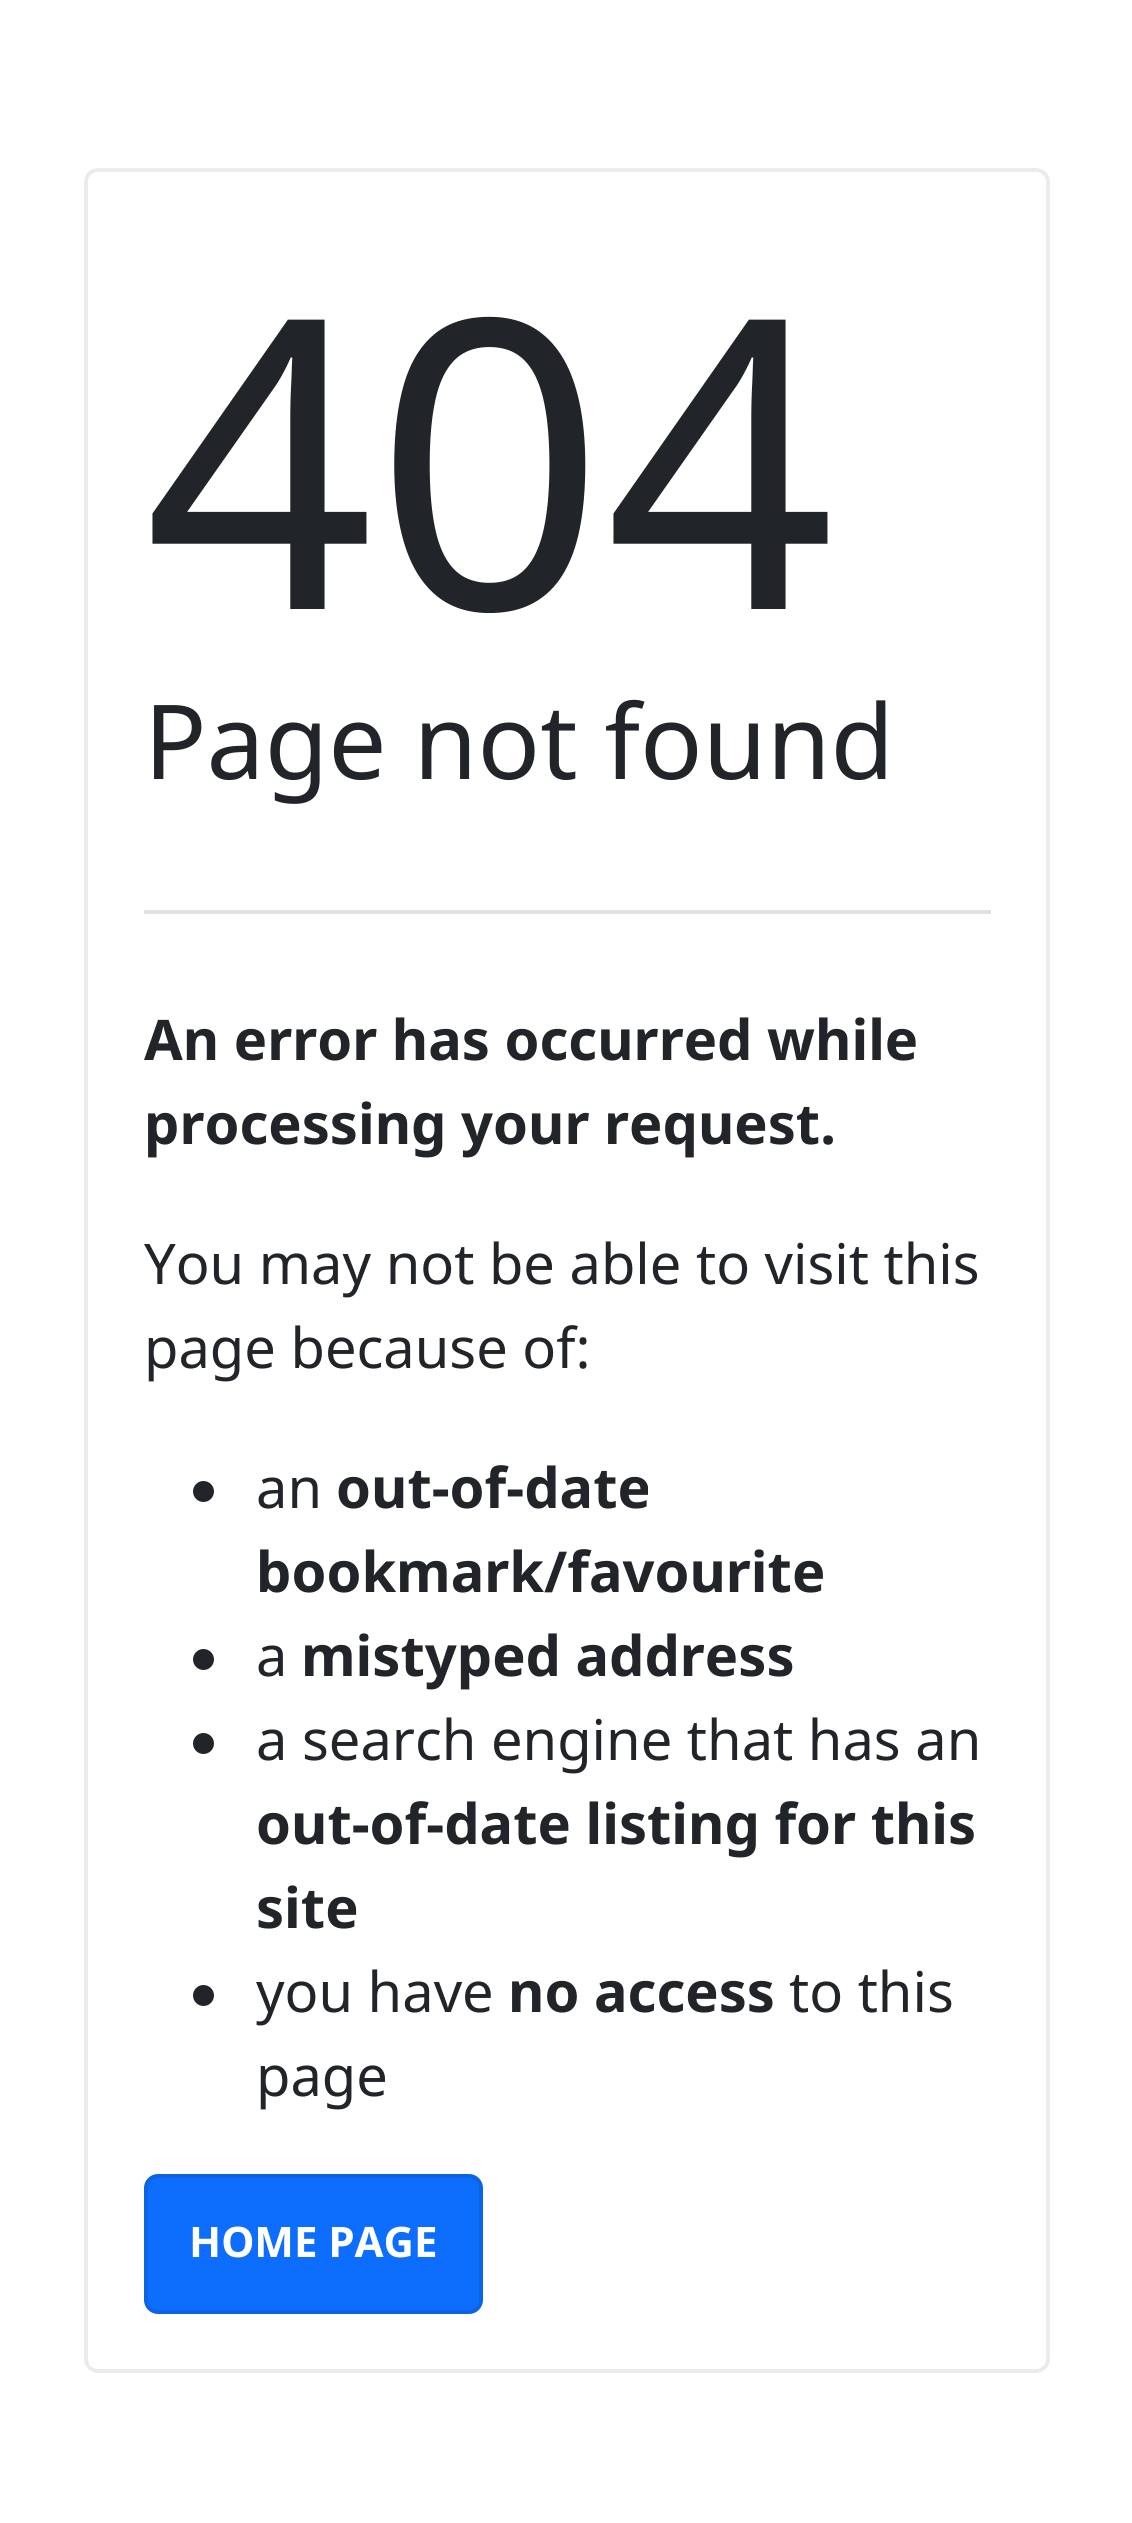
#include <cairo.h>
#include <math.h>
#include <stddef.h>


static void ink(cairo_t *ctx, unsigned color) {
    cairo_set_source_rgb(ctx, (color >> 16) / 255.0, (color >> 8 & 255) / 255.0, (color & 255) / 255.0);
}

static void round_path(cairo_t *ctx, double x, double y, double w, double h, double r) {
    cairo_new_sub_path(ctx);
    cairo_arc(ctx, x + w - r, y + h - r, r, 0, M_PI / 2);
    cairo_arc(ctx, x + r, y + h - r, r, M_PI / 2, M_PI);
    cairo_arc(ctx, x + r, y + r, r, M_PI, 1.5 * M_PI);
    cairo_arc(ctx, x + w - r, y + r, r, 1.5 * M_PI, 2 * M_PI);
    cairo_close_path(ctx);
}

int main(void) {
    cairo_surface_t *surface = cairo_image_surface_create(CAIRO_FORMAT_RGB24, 1132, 2523);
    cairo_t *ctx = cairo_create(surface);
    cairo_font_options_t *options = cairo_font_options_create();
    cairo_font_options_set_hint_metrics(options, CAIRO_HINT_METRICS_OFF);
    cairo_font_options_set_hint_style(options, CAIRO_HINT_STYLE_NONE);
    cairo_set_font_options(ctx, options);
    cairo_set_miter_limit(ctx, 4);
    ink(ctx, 0xFFFFFF);
    cairo_paint(ctx);
    round_path(ctx, 86, 170, 962, 2201, 12);
    ink(ctx, 0xEAEBEC);
    cairo_set_line_width(ctx, 4);
    cairo_stroke(ctx);
    ink(ctx, 0xDEE2E6);
    cairo_rectangle(ctx, 144, 910, 847, 4);
    cairo_fill(ctx);
    cairo_select_font_face(ctx, "Noto Sans", CAIRO_FONT_SLANT_NORMAL, CAIRO_FONT_WEIGHT_NORMAL);
    cairo_set_font_size(ctx, 403);
    ink(ctx, 0x212529);
    cairo_move_to(ctx, 144, 609);
    cairo_show_text(ctx, "404");
    cairo_set_font_size(ctx, 103.5);
    cairo_move_to(ctx, 144, 779);
    cairo_show_text(ctx, "Page not found");
    cairo_select_font_face(ctx, "Noto Sans", CAIRO_FONT_SLANT_NORMAL, CAIRO_FONT_WEIGHT_BOLD);
    cairo_set_font_size(ctx, 56);
    cairo_move_to(ctx, 144, 1060);
    cairo_show_text(ctx, "An error has occurred while");
    cairo_move_to(ctx, 144, 1144);
    cairo_show_text(ctx, "processing your request.");
    cairo_select_font_face(ctx, "Noto Sans", CAIRO_FONT_SLANT_NORMAL, CAIRO_FONT_WEIGHT_NORMAL);
    cairo_move_to(ctx, 144, 1284);
    cairo_show_text(ctx, "You may not be able to visit this");
    cairo_move_to(ctx, 144, 1368);
    cairo_show_text(ctx, "page because of:");
    cairo_new_path(ctx);
    cairo_arc(ctx, 203.5, 1491.5, 10.5, 0, 2 * M_PI);
    cairo_fill(ctx);
    cairo_move_to(ctx, 256, 1508);
    cairo_show_text(ctx, "an");
    cairo_select_font_face(ctx, "Noto Sans", CAIRO_FONT_SLANT_NORMAL, CAIRO_FONT_WEIGHT_BOLD);
    cairo_move_to(ctx, 336, 1508);
    cairo_show_text(ctx, "out-of-date");
    cairo_move_to(ctx, 256, 1592);
    cairo_show_text(ctx, "bookmark/favourite");
    cairo_new_path(ctx);
    cairo_arc(ctx, 203.5, 1659.5, 10.5, 0, 2 * M_PI);
    cairo_fill(ctx);
    cairo_select_font_face(ctx, "Noto Sans", CAIRO_FONT_SLANT_NORMAL, CAIRO_FONT_WEIGHT_NORMAL);
    cairo_move_to(ctx, 256, 1676);
    cairo_show_text(ctx, "a");
    cairo_select_font_face(ctx, "Noto Sans", CAIRO_FONT_SLANT_NORMAL, CAIRO_FONT_WEIGHT_BOLD);
    cairo_move_to(ctx, 301, 1676);
    cairo_show_text(ctx, "mistyped address");
    cairo_new_path(ctx);
    cairo_arc(ctx, 203.5, 1743.5, 10.5, 0, 2 * M_PI);
    cairo_fill(ctx);
    cairo_select_font_face(ctx, "Noto Sans", CAIRO_FONT_SLANT_NORMAL, CAIRO_FONT_WEIGHT_NORMAL);
    cairo_move_to(ctx, 256, 1760);
    cairo_show_text(ctx, "a search engine that has an");
    cairo_select_font_face(ctx, "Noto Sans", CAIRO_FONT_SLANT_NORMAL, CAIRO_FONT_WEIGHT_BOLD);
    cairo_move_to(ctx, 256, 1844);
    cairo_show_text(ctx, "out-of-date listing for this");
    cairo_move_to(ctx, 256, 1928);
    cairo_show_text(ctx, "site");
    cairo_new_path(ctx);
    cairo_arc(ctx, 203.5, 1995.5, 10.5, 0, 2 * M_PI);
    cairo_fill(ctx);
    cairo_select_font_face(ctx, "Noto Sans", CAIRO_FONT_SLANT_NORMAL, CAIRO_FONT_WEIGHT_NORMAL);
    cairo_move_to(ctx, 256, 2012);
    cairo_show_text(ctx, "you have");
    cairo_select_font_face(ctx, "Noto Sans", CAIRO_FONT_SLANT_NORMAL, CAIRO_FONT_WEIGHT_BOLD);
    cairo_move_to(ctx, 508, 2012);
    cairo_show_text(ctx, "no access");
    cairo_select_font_face(ctx, "Noto Sans", CAIRO_FONT_SLANT_NORMAL, CAIRO_FONT_WEIGHT_NORMAL);
    cairo_move_to(ctx, 789, 2012);
    cairo_show_text(ctx, "to this");
    cairo_move_to(ctx, 256, 2096);
    cairo_show_text(ctx, "page");
    ink(ctx, 0x0D6EFD);
    round_path(ctx, 146, 2176, 335, 136, 12);
    cairo_fill_preserve(ctx);
    ink(ctx, 0x0C63E4);
    cairo_stroke(ctx);
    cairo_select_font_face(ctx, "Noto Sans", CAIRO_FONT_SLANT_NORMAL, CAIRO_FONT_WEIGHT_BOLD);
    cairo_set_font_size(ctx, 42);
    ink(ctx, 0xFFFFFF);
    cairo_move_to(ctx, 189, 2257);
    cairo_show_text(ctx, "HOME PAGE");
    cairo_surface_write_to_png(surface, "image.png");
    cairo_font_options_destroy(options);
    cairo_destroy(ctx);
    cairo_surface_destroy(surface);
    return 0;
}
